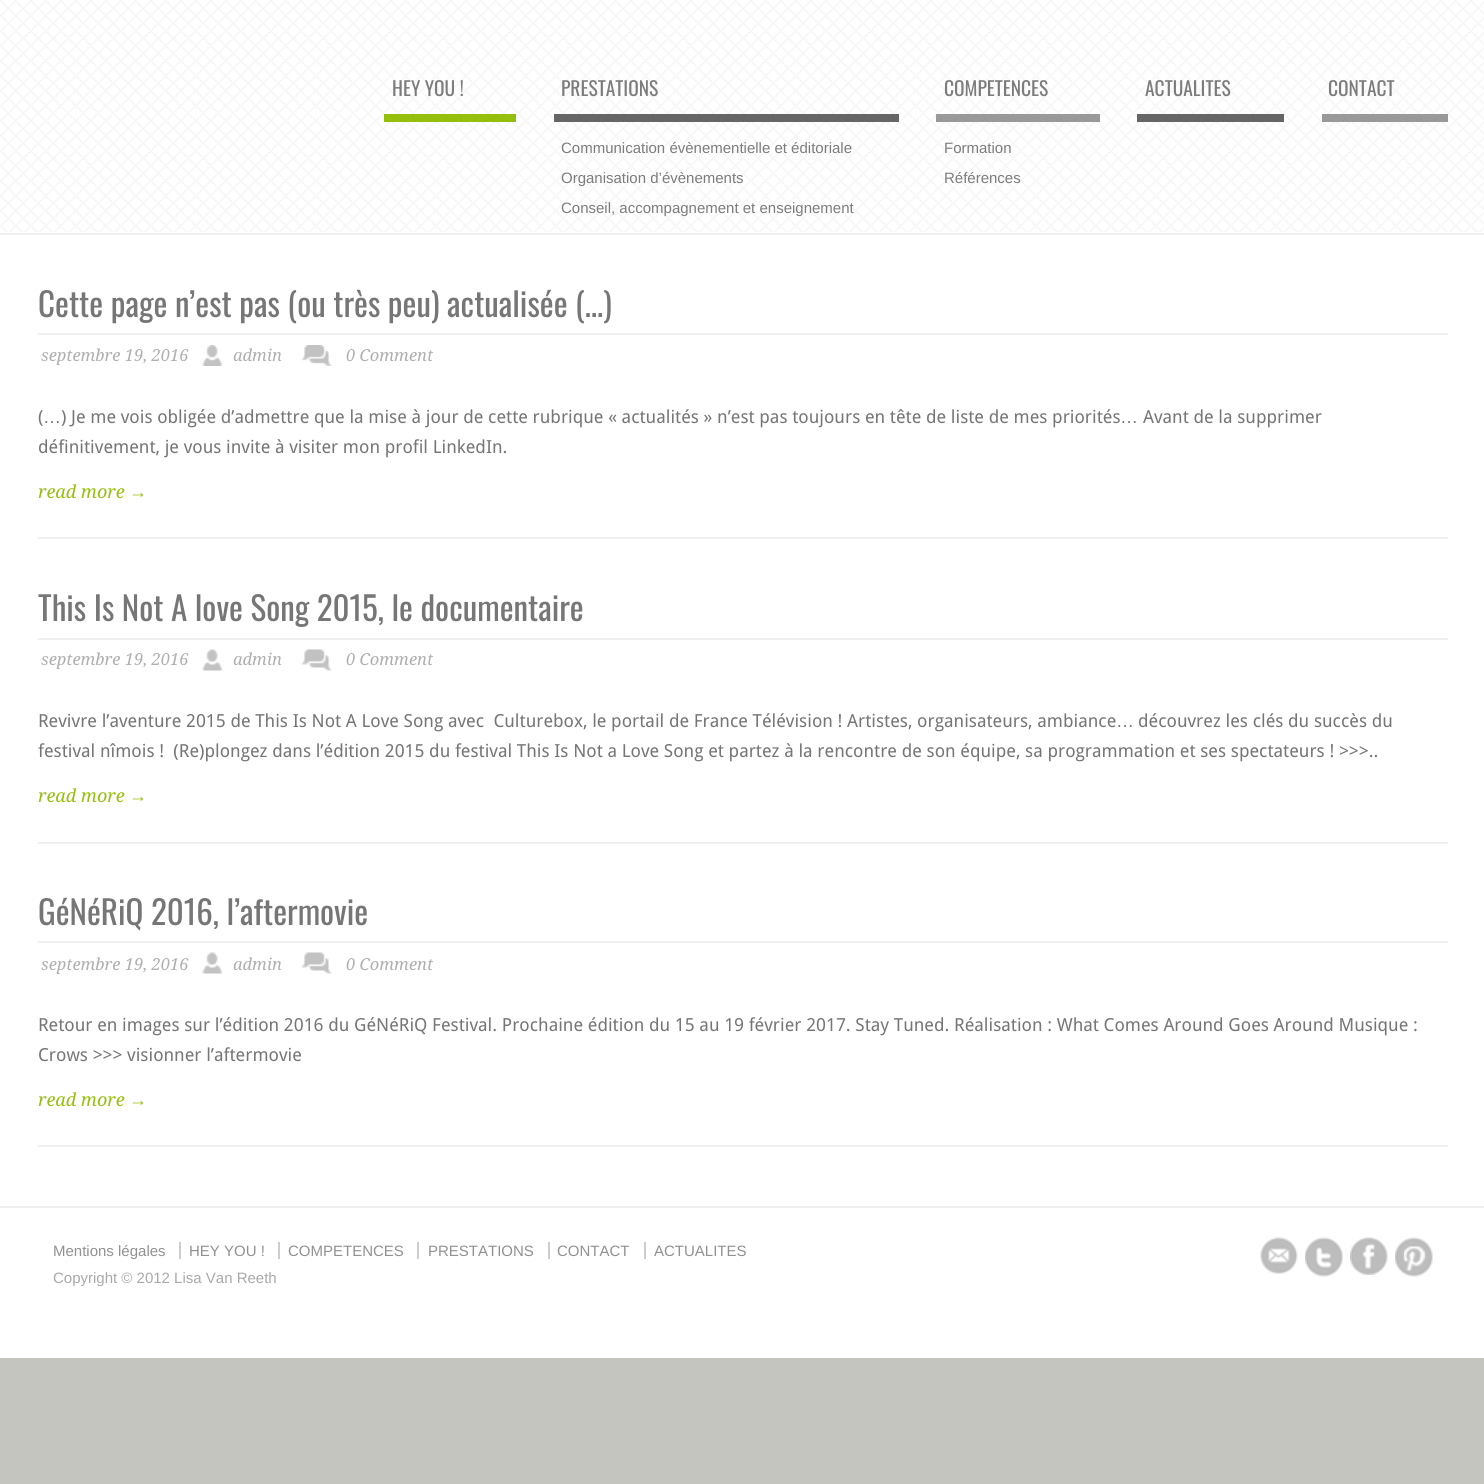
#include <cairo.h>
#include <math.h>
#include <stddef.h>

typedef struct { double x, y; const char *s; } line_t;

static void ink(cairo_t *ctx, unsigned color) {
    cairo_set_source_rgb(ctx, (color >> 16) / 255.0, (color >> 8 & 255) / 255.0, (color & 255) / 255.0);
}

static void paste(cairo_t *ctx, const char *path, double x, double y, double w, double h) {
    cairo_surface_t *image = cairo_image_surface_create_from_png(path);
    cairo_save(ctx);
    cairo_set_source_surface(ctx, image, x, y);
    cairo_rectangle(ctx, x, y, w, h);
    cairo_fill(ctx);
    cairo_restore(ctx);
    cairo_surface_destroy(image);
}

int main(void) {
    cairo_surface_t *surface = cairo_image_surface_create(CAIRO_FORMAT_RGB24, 1484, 1484);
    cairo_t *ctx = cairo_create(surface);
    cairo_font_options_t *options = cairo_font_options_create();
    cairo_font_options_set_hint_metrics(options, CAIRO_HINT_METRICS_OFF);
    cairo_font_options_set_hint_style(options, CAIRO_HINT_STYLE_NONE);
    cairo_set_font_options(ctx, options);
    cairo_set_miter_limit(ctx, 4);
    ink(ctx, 0xC5C5BF);
    cairo_paint(ctx);
    ink(ctx, 0xFFFFFF);
    cairo_rectangle(ctx, 0, 0, 1484, 1358);
    cairo_fill(ctx);
    paste(ctx, "media/1.png", 0, 0, 1484, 232);
    ink(ctx, 0x95BF0D);
    cairo_rectangle(ctx, 384, 114, 132, 8);
    cairo_fill(ctx);
    cairo_select_font_face(ctx, "Oswald", CAIRO_FONT_SLANT_NORMAL, CAIRO_FONT_WEIGHT_NORMAL);
    cairo_set_font_size(ctx, 19.5);
    ink(ctx, 0x7C7C7C);
    cairo_move_to(ctx, 392, 96);
    cairo_show_text(ctx, "HEY YOU !");
    ink(ctx, 0x666666);
    cairo_rectangle(ctx, 554, 114, 345, 8);
    cairo_fill(ctx);
    ink(ctx, 0x7C7C7C);
    cairo_move_to(ctx, 561, 96);
    cairo_show_text(ctx, "PRESTATIONS");
    cairo_select_font_face(ctx, "Liberation Sans", CAIRO_FONT_SLANT_NORMAL, CAIRO_FONT_WEIGHT_NORMAL);
    cairo_set_font_size(ctx, 15);
    {
        static const line_t items[] = {
            {561, 153, "Communication évènementielle et éditoriale"},
            {561, 183, "Organisation d’évènements"},
            {561, 213, "Conseil, accompagnement et enseignement"},
        };
        for (size_t i = 0; i < sizeof items / sizeof *items; i++) {
            cairo_move_to(ctx, items[i].x, items[i].y);
            cairo_show_text(ctx, items[i].s);
        }
    }
    ink(ctx, 0x999999);
    cairo_rectangle(ctx, 936, 114, 164, 8);
    cairo_fill(ctx);
    cairo_select_font_face(ctx, "Oswald", CAIRO_FONT_SLANT_NORMAL, CAIRO_FONT_WEIGHT_NORMAL);
    cairo_set_font_size(ctx, 19.5);
    ink(ctx, 0x7C7C7C);
    cairo_move_to(ctx, 944, 96);
    cairo_show_text(ctx, "COMPETENCES");
    cairo_select_font_face(ctx, "Liberation Sans", CAIRO_FONT_SLANT_NORMAL, CAIRO_FONT_WEIGHT_NORMAL);
    cairo_set_font_size(ctx, 15);
    cairo_move_to(ctx, 944, 153);
    cairo_show_text(ctx, "Formation");
    cairo_move_to(ctx, 944, 183);
    cairo_show_text(ctx, "Références");
    ink(ctx, 0x666666);
    cairo_rectangle(ctx, 1137, 114, 147, 8);
    cairo_fill(ctx);
    cairo_select_font_face(ctx, "Oswald", CAIRO_FONT_SLANT_NORMAL, CAIRO_FONT_WEIGHT_NORMAL);
    cairo_set_font_size(ctx, 19.5);
    ink(ctx, 0x7C7C7C);
    cairo_move_to(ctx, 1145, 96);
    cairo_show_text(ctx, "ACTUALITES");
    ink(ctx, 0x999999);
    cairo_rectangle(ctx, 1322, 114, 126, 8);
    cairo_fill(ctx);
    ink(ctx, 0x7C7C7C);
    cairo_move_to(ctx, 1328, 96);
    cairo_show_text(ctx, "CONTACT");
    ink(ctx, 0xF0F0F0);
    cairo_rectangle(ctx, 0, 233, 1484, 2);
    cairo_fill(ctx);
    cairo_set_font_size(ctx, 33);
    ink(ctx, 0x767676);
    cairo_move_to(ctx, 38, 317);
    cairo_show_text(ctx, "Cette page n’est pas (ou très peu) actualisée (…)");
    ink(ctx, 0xF0F0F0);
    cairo_rectangle(ctx, 38, 333, 1410, 2);
    cairo_fill(ctx);
    cairo_select_font_face(ctx, "Droid Serif", CAIRO_FONT_SLANT_ITALIC, CAIRO_FONT_WEIGHT_NORMAL);
    cairo_set_font_size(ctx, 16.5);
    ink(ctx, 0xAFAFAF);
    cairo_move_to(ctx, 41, 361);
    cairo_show_text(ctx, "septembre 19, 2016");
    paste(ctx, "media/2.png", 202, 345, 20, 21);
    cairo_move_to(ctx, 233, 361);
    cairo_show_text(ctx, "admin");
    paste(ctx, "media/3.png", 301, 345, 31, 21);
    cairo_move_to(ctx, 346, 361);
    cairo_show_text(ctx, "0 Comment");
    cairo_select_font_face(ctx, "Droid Sans", CAIRO_FONT_SLANT_NORMAL, CAIRO_FONT_WEIGHT_NORMAL);
    cairo_set_font_size(ctx, 18);
    ink(ctx, 0x767676);
    cairo_move_to(ctx, 38, 423);
    cairo_show_text(ctx, "(");
    cairo_select_font_face(ctx, "Liberation Sans", CAIRO_FONT_SLANT_NORMAL, CAIRO_FONT_WEIGHT_NORMAL);
    cairo_move_to(ctx, 43, 423);
    cairo_show_text(ctx, "…");
    cairo_select_font_face(ctx, "Droid Sans", CAIRO_FONT_SLANT_NORMAL, CAIRO_FONT_WEIGHT_NORMAL);
    cairo_move_to(ctx, 61, 423);
    cairo_show_text(ctx, ") Je me vois obligée d’admettre que la mise à jour de cette rubrique « actualités » n’est pas toujours en tête de liste de mes priorités");
    cairo_select_font_face(ctx, "Liberation Sans", CAIRO_FONT_SLANT_NORMAL, CAIRO_FONT_WEIGHT_NORMAL);
    cairo_move_to(ctx, 1120, 423);
    cairo_show_text(ctx, "…");
    cairo_select_font_face(ctx, "Droid Sans", CAIRO_FONT_SLANT_NORMAL, CAIRO_FONT_WEIGHT_NORMAL);
    cairo_move_to(ctx, 1143, 423);
    cairo_show_text(ctx, "Avant de la supprimer");
    cairo_move_to(ctx, 38, 453);
    cairo_show_text(ctx, "définitivement, je vous invite à visiter mon profil LinkedIn.");
    cairo_select_font_face(ctx, "Droid Serif", CAIRO_FONT_SLANT_ITALIC, CAIRO_FONT_WEIGHT_NORMAL);
    ink(ctx, 0x95BF0D);
    cairo_move_to(ctx, 38, 498);
    cairo_show_text(ctx, "read more");
    cairo_select_font_face(ctx, "Liberation Serif", CAIRO_FONT_SLANT_ITALIC, CAIRO_FONT_WEIGHT_NORMAL);
    cairo_move_to(ctx, 129, 498);
    cairo_show_text(ctx, "→");
    ink(ctx, 0xF0F0F0);
    cairo_rectangle(ctx, 38, 537, 1410, 2);
    cairo_fill(ctx);
    cairo_select_font_face(ctx, "Oswald", CAIRO_FONT_SLANT_NORMAL, CAIRO_FONT_WEIGHT_NORMAL);
    cairo_set_font_size(ctx, 33);
    ink(ctx, 0x767676);
    cairo_move_to(ctx, 38, 621);
    cairo_show_text(ctx, "This Is Not A love Song 2015, le documentaire");
    ink(ctx, 0xF0F0F0);
    cairo_rectangle(ctx, 38, 638, 1410, 2);
    cairo_fill(ctx);
    cairo_select_font_face(ctx, "Droid Serif", CAIRO_FONT_SLANT_ITALIC, CAIRO_FONT_WEIGHT_NORMAL);
    cairo_set_font_size(ctx, 16.5);
    ink(ctx, 0xAFAFAF);
    cairo_move_to(ctx, 41, 665);
    cairo_show_text(ctx, "septembre 19, 2016");
    paste(ctx, "media/4.png", 202, 649, 20, 22);
    cairo_move_to(ctx, 233, 665);
    cairo_show_text(ctx, "admin");
    paste(ctx, "media/5.png", 301, 649, 31, 22);
    cairo_move_to(ctx, 346, 665);
    cairo_show_text(ctx, "0 Comment");
    cairo_select_font_face(ctx, "Droid Sans", CAIRO_FONT_SLANT_NORMAL, CAIRO_FONT_WEIGHT_NORMAL);
    cairo_set_font_size(ctx, 18);
    ink(ctx, 0x767676);
    cairo_move_to(ctx, 38, 727);
    cairo_show_text(ctx, "Revivre l’aventure 2015 de This Is Not A Love Song avec  Culturebox, le portail de France Télévision ! Artistes, organisateurs, ambiance");
    cairo_select_font_face(ctx, "Liberation Sans", CAIRO_FONT_SLANT_NORMAL, CAIRO_FONT_WEIGHT_NORMAL);
    cairo_move_to(ctx, 1116, 727);
    cairo_show_text(ctx, "…");
    cairo_select_font_face(ctx, "Droid Sans", CAIRO_FONT_SLANT_NORMAL, CAIRO_FONT_WEIGHT_NORMAL);
    cairo_move_to(ctx, 1138, 727);
    cairo_show_text(ctx, "découvrez les clés du succès du");
    cairo_move_to(ctx, 38, 757);
    cairo_show_text(ctx, "festival nîmois !  (Re)plongez dans l’édition 2015 du festival This Is Not a Love Song et partez à la rencontre de son équipe, sa programmation et ses spectateurs ! >>>..");
    cairo_select_font_face(ctx, "Droid Serif", CAIRO_FONT_SLANT_ITALIC, CAIRO_FONT_WEIGHT_NORMAL);
    ink(ctx, 0x95BF0D);
    cairo_move_to(ctx, 38, 802);
    cairo_show_text(ctx, "read more");
    cairo_select_font_face(ctx, "Liberation Serif", CAIRO_FONT_SLANT_ITALIC, CAIRO_FONT_WEIGHT_NORMAL);
    cairo_move_to(ctx, 129, 802);
    cairo_show_text(ctx, "→");
    ink(ctx, 0xF0F0F0);
    cairo_rectangle(ctx, 38, 842, 1410, 2);
    cairo_fill(ctx);
    cairo_select_font_face(ctx, "Oswald", CAIRO_FONT_SLANT_NORMAL, CAIRO_FONT_WEIGHT_NORMAL);
    cairo_set_font_size(ctx, 33);
    ink(ctx, 0x767676);
    cairo_move_to(ctx, 38, 925);
    cairo_show_text(ctx, "GéNéRiQ 2016, l’aftermovie");
    ink(ctx, 0xF0F0F0);
    cairo_rectangle(ctx, 38, 941, 1410, 2);
    cairo_fill(ctx);
    cairo_select_font_face(ctx, "Droid Serif", CAIRO_FONT_SLANT_ITALIC, CAIRO_FONT_WEIGHT_NORMAL);
    cairo_set_font_size(ctx, 16.5);
    ink(ctx, 0xAFAFAF);
    cairo_move_to(ctx, 41, 970);
    cairo_show_text(ctx, "septembre 19, 2016");
    paste(ctx, "media/4.png", 202, 952, 20, 22);
    cairo_move_to(ctx, 233, 970);
    cairo_show_text(ctx, "admin");
    paste(ctx, "media/5.png", 301, 952, 31, 22);
    cairo_move_to(ctx, 346, 970);
    cairo_show_text(ctx, "0 Comment");
    cairo_select_font_face(ctx, "Droid Sans", CAIRO_FONT_SLANT_NORMAL, CAIRO_FONT_WEIGHT_NORMAL);
    cairo_set_font_size(ctx, 18);
    ink(ctx, 0x767676);
    cairo_move_to(ctx, 38, 1031);
    cairo_show_text(ctx, "Retour en images sur l’édition 2016 du GéNéRiQ Festival. Prochaine édition du 15 au 19 février 2017. Stay Tuned. Réalisation : What Comes Around Goes Around Musique :");
    cairo_move_to(ctx, 38, 1061);
    cairo_show_text(ctx, "Crows >>> visionner l’aftermovie");
    cairo_select_font_face(ctx, "Droid Serif", CAIRO_FONT_SLANT_ITALIC, CAIRO_FONT_WEIGHT_NORMAL);
    ink(ctx, 0x95BF0D);
    cairo_move_to(ctx, 38, 1106);
    cairo_show_text(ctx, "read more");
    cairo_select_font_face(ctx, "Liberation Serif", CAIRO_FONT_SLANT_ITALIC, CAIRO_FONT_WEIGHT_NORMAL);
    cairo_move_to(ctx, 129, 1106);
    cairo_show_text(ctx, "→");
    ink(ctx, 0xF0F0F0);
    cairo_rectangle(ctx, 38, 1145, 1410, 2);
    cairo_fill(ctx);
    cairo_rectangle(ctx, 0, 1206, 1484, 2);
    cairo_fill(ctx);
    cairo_select_font_face(ctx, "Liberation Sans", CAIRO_FONT_SLANT_NORMAL, CAIRO_FONT_WEIGHT_NORMAL);
    cairo_set_font_size(ctx, 15);
    ink(ctx, 0x919191);
    cairo_move_to(ctx, 53, 1256);
    cairo_show_text(ctx, "Mentions légales");
    cairo_move_to(ctx, 189, 1256);
    cairo_show_text(ctx, "HEY YOU !");
    ink(ctx, 0xCDCDCD);
    cairo_rectangle(ctx, 179, 1242, 2, 17);
    cairo_fill(ctx);
    ink(ctx, 0x919191);
    cairo_move_to(ctx, 288, 1256);
    cairo_show_text(ctx, "COMPETENCES");
    ink(ctx, 0xCDCDCD);
    cairo_rectangle(ctx, 278, 1242, 2, 17);
    cairo_fill(ctx);
    ink(ctx, 0x919191);
    cairo_move_to(ctx, 428, 1256);
    cairo_show_text(ctx, "PRESTATIONS");
    ink(ctx, 0xCDCDCD);
    cairo_rectangle(ctx, 417, 1242, 2, 17);
    cairo_fill(ctx);
    ink(ctx, 0x919191);
    cairo_move_to(ctx, 557, 1256);
    cairo_show_text(ctx, "CONTACT");
    ink(ctx, 0xCDCDCD);
    cairo_rectangle(ctx, 548, 1242, 2, 17);
    cairo_fill(ctx);
    ink(ctx, 0x919191);
    cairo_move_to(ctx, 654, 1256);
    cairo_show_text(ctx, "ACTUALITES");
    ink(ctx, 0xCDCDCD);
    cairo_rectangle(ctx, 644, 1242, 2, 17);
    cairo_fill(ctx);
    ink(ctx, 0xA9A9A9);
    cairo_move_to(ctx, 53, 1283);
    cairo_show_text(ctx, "Copyright © 2012 Lisa Van Reeth");
    paste(ctx, "media/6.png", 1260, 1237, 38, 37);
    paste(ctx, "media/7.png", 1305, 1237, 38, 40);
    paste(ctx, "media/8.png", 1350, 1237, 38, 38);
    paste(ctx, "media/9.png", 1395, 1237, 38, 40);
    cairo_surface_write_to_png(surface, "image.png");
    cairo_font_options_destroy(options);
    cairo_destroy(ctx);
    cairo_surface_destroy(surface);
    return 0;
}
